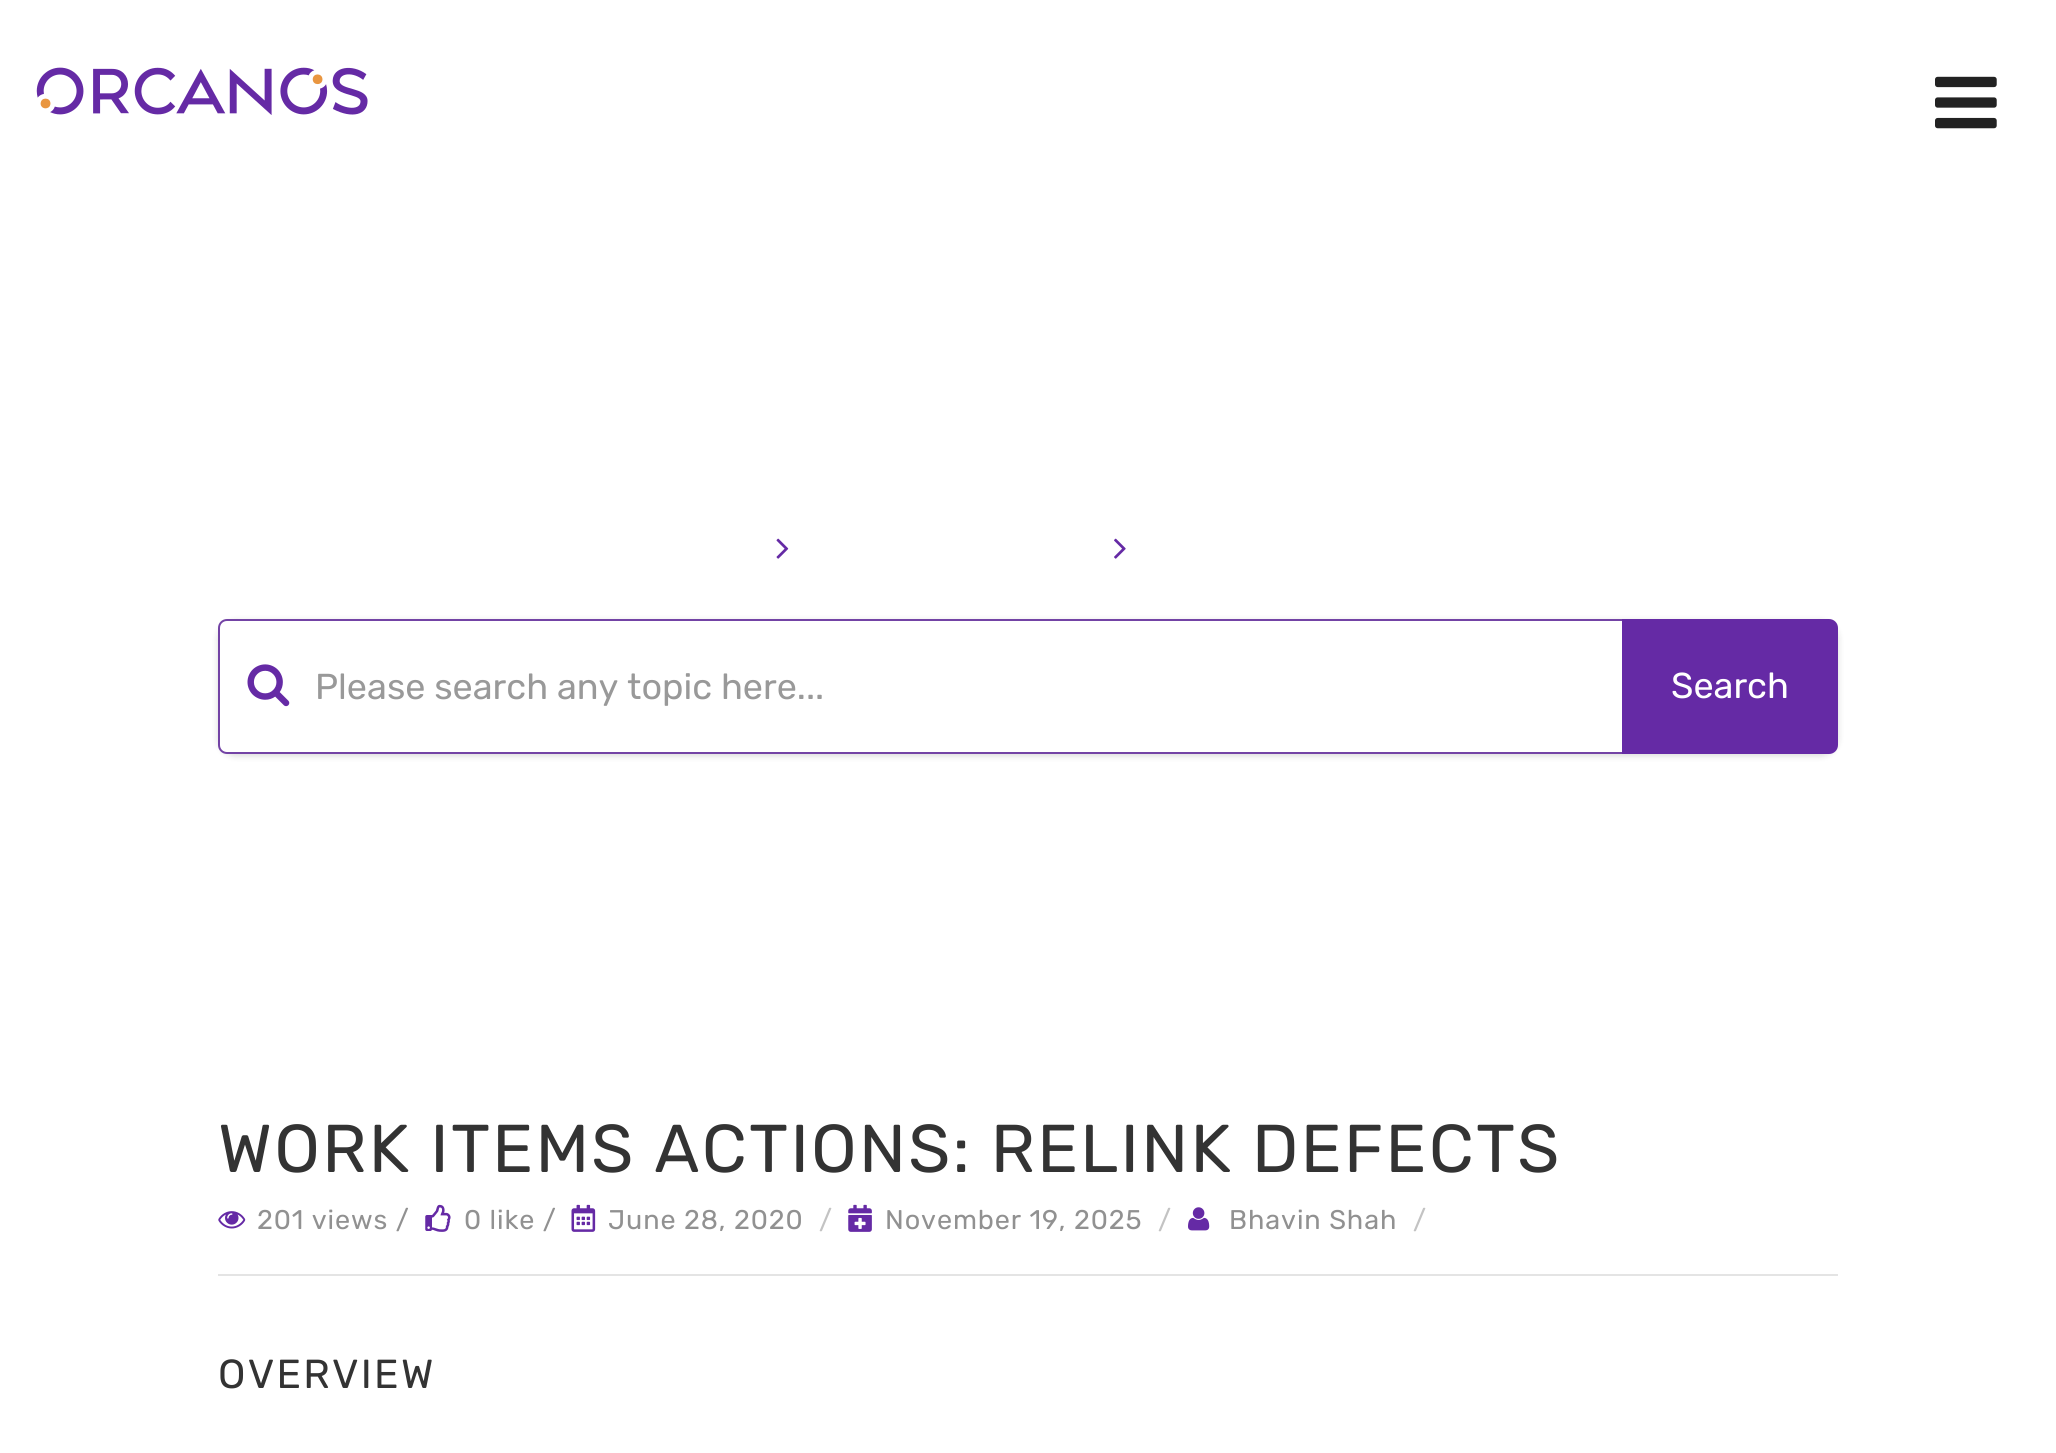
#include <cairo.h>
#include <math.h>
#include <stddef.h>


static void ink(cairo_t *ctx, unsigned color) {
    cairo_set_source_rgb(ctx, (color >> 16) / 255.0, (color >> 8 & 255) / 255.0, (color & 255) / 255.0);
}

static void write_spaced(cairo_t *ctx, double x, double y, const char *s, double letter, double word) {
    cairo_move_to(ctx, x, y);
    while (*s) {
        char ch[5] = {0};
        int n = 0;
        do ch[n++] = *s++; while ((*s & 0xC0) == 0x80);
        cairo_show_text(ctx, ch);
        cairo_rel_move_to(ctx, letter + word * (*ch == ' '), 0);
    }
}

static void round_path(cairo_t *ctx, double x, double y, double w, double h, double r) {
    cairo_new_sub_path(ctx);
    cairo_arc(ctx, x + w - r, y + h - r, r, 0, M_PI / 2);
    cairo_arc(ctx, x + r, y + h - r, r, M_PI / 2, M_PI);
    cairo_arc(ctx, x + r, y + r, r, M_PI, 1.5 * M_PI);
    cairo_arc(ctx, x + w - r, y + r, r, 1.5 * M_PI, 2 * M_PI);
    cairo_close_path(ctx);
}

static void blur_box(cairo_t *ctx, double x, double y, double w, double h, double r, double blur, double alpha) {
    cairo_push_group_with_content(ctx, CAIRO_CONTENT_ALPHA);
    cairo_set_operator(ctx, CAIRO_OPERATOR_SOURCE);
    for (int i = 15; i >= -15 && fmin(w, h) + blur * i / 3 > 0; i -= 2) {
        double e = blur * i / 6;
        cairo_set_source_rgba(ctx, 0, 0, 0, alpha * erfc((i - 1) / 8.5) / 2);
        round_path(ctx, x - e, y - e, w + 2 * e, h + 2 * e, fmax(0, fmin(r + e + blur * .6, fmin(w, h) / 2 + e)));
        cairo_fill(ctx);
    }
    cairo_pattern_t *soft = cairo_pop_group(ctx);
    cairo_mask(ctx, soft);
    cairo_pattern_destroy(soft);
}

static void paste(cairo_t *ctx, const char *path, double x, double y, double w, double h) {
    cairo_surface_t *image = cairo_image_surface_create_from_png(path);
    cairo_save(ctx);
    cairo_set_source_surface(ctx, image, x, y);
    cairo_rectangle(ctx, x, y, w, h);
    cairo_fill(ctx);
    cairo_restore(ctx);
    cairo_surface_destroy(image);
}

int main(void) {
    cairo_surface_t *surface = cairo_image_surface_create(CAIRO_FORMAT_RGB24, 2056, 1453);
    cairo_t *ctx = cairo_create(surface);
    cairo_font_options_t *options = cairo_font_options_create();
    cairo_font_options_set_hint_metrics(options, CAIRO_HINT_METRICS_OFF);
    cairo_font_options_set_hint_style(options, CAIRO_HINT_STYLE_NONE);
    cairo_set_font_options(ctx, options);
    cairo_set_miter_limit(ctx, 4);
    ink(ctx, 0xFFFFFF);
    cairo_paint(ctx);
    paste(ctx, "media/1.png", 36, 67, 332, 48);
    paste(ctx, "media/2.png", 1935, 76, 62, 53);
    paste(ctx, "media/3.png", 776, 538, 13, 21);
    paste(ctx, "media/4.png", 1114, 538, 12, 21);
    ink(ctx, 0x000000);
    blur_box(ctx, 218, 621, 1620, 135, 18, 3.5, 0.15);
    ink(ctx, 0xFFFFFF);
    cairo_new_path(ctx);
    cairo_move_to(ctx, 227, 620);
    cairo_line_to(ctx, 1820, 620);
    cairo_curve_to(ctx, 1829.5, 620, 1837, 627.5, 1837, 637);
    cairo_line_to(ctx, 1837, 736);
    cairo_curve_to(ctx, 1837, 745.5, 1829.5, 753, 1820, 753);
    cairo_line_to(ctx, 227, 753);
    cairo_curve_to(ctx, 222.5, 753, 219, 749.5, 219, 745);
    cairo_line_to(ctx, 219, 628);
    cairo_curve_to(ctx, 219, 623.5, 222.5, 620, 227, 620);
    cairo_close_path(ctx);
    cairo_fill_preserve(ctx);
    ink(ctx, 0x7343A5);
    cairo_stroke(ctx);
    paste(ctx, "media/5.png", 247, 664, 43, 43);
    cairo_select_font_face(ctx, "Rubik Light", CAIRO_FONT_SLANT_NORMAL, CAIRO_FONT_WEIGHT_NORMAL);
    cairo_set_font_size(ctx, 36);
    ink(ctx, 0x999999);
    cairo_move_to(ctx, 315, 699);
    cairo_show_text(ctx, "Please search any topic here...");
    ink(ctx, 0x652AA5);
    cairo_new_path(ctx);
    cairo_move_to(ctx, 1622, 619);
    cairo_line_to(ctx, 1829, 619);
    cairo_curve_to(ctx, 1834, 619, 1838, 623, 1838, 628);
    cairo_line_to(ctx, 1838, 745);
    cairo_curve_to(ctx, 1838, 750, 1834, 754, 1829, 754);
    cairo_line_to(ctx, 1622, 754);
    cairo_close_path(ctx);
    cairo_fill(ctx);
    ink(ctx, 0xFFFFFF);
    cairo_move_to(ctx, 1671, 698);
    cairo_show_text(ctx, "Search");
    ink(ctx, 0xE4E4E4);
    cairo_rectangle(ctx, 218, 1274, 1620, 2);
    cairo_fill(ctx);
    cairo_set_font_size(ctx, 67.5);
    ink(ctx, 0x333333);
    write_spaced(ctx, 218, 1172, "WORK ITEMS ACTIONS: RELINK DEFECTS", 2.25, 0);
    paste(ctx, "media/6.png", 218, 1211, 28, 18);
    cairo_set_font_size(ctx, 27);
    ink(ctx, 0x919191);
    write_spaced(ctx, 257, 1229, "201 views /", 0.9, 0);
    paste(ctx, "media/7.png", 425, 1204, 26, 28);
    write_spaced(ctx, 464, 1229, "0 like /", 0.9, 0);
    paste(ctx, "media/8.png", 571, 1204, 25, 28);
    write_spaced(ctx, 608, 1229, "June 28, 2020", 0.9, 0);
    ink(ctx, 0xC3C3C3);
    write_spaced(ctx, 819, 1229, "/", 0.9, 0);
    paste(ctx, "media/9.png", 848, 1204, 24, 28);
    ink(ctx, 0x919191);
    write_spaced(ctx, 885, 1229, "November 19, 2025", 0.9, 0);
    ink(ctx, 0xC3C3C3);
    write_spaced(ctx, 1158, 1229, "/", 0.9, 0);
    paste(ctx, "media/10.png", 1188, 1207, 22, 24);
    ink(ctx, 0x919191);
    write_spaced(ctx, 1229, 1229, "Bhavin Shah", 0.9, 0);
    ink(ctx, 0xC3C3C3);
    write_spaced(ctx, 1413, 1229, "/", 0.9, 0);
    cairo_set_font_size(ctx, 40.5);
    ink(ctx, 0x333333);
    write_spaced(ctx, 218, 1388, "OVERVIEW", 2.25, 0);
    cairo_surface_write_to_png(surface, "image.png");
    cairo_font_options_destroy(options);
    cairo_destroy(ctx);
    cairo_surface_destroy(surface);
    return 0;
}
